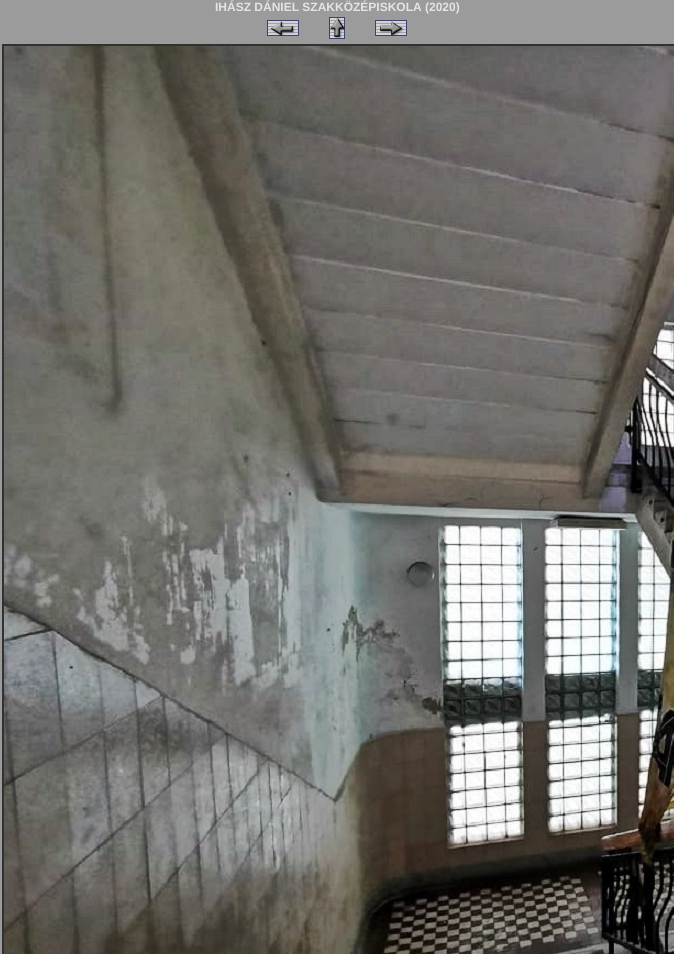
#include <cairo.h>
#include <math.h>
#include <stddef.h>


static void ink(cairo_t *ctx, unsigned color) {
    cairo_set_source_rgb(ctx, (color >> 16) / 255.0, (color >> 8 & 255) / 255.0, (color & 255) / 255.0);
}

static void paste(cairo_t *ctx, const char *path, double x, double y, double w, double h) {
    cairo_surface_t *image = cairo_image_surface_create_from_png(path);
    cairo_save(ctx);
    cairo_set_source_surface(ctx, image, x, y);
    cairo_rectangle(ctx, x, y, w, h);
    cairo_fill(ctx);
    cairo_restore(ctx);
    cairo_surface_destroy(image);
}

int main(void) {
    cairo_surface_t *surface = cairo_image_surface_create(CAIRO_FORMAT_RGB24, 674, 954);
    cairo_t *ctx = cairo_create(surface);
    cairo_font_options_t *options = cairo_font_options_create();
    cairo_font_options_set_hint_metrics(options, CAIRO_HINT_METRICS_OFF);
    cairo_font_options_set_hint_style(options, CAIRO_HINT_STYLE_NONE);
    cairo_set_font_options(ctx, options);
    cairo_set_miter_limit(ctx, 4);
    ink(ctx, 0x9B9B9B);
    cairo_paint(ctx);
    cairo_select_font_face(ctx, "Liberation Sans", CAIRO_FONT_SLANT_NORMAL, CAIRO_FONT_WEIGHT_BOLD);
    cairo_set_font_size(ctx, 12);
    ink(ctx, 0xE4E4E4);
    cairo_move_to(ctx, 215, 11);
    cairo_show_text(ctx, "IHÁSZ DÁNIEL SZAKKÖZÉPISKOLA (2020)");
    paste(ctx, "media/1.png", 267, 20, 32, 16);
    paste(ctx, "media/2.png", 329, 17, 16, 22);
    paste(ctx, "media/3.png", 375, 20, 32, 16);
    ink(ctx, 0x313131);
    cairo_rectangle(ctx, 2, 44, 672, 910);
    cairo_fill(ctx);
    paste(ctx, "media/4.png", 4, 46, 670, 908);
    cairo_surface_write_to_png(surface, "image.png");
    cairo_font_options_destroy(options);
    cairo_destroy(ctx);
    cairo_surface_destroy(surface);
    return 0;
}
